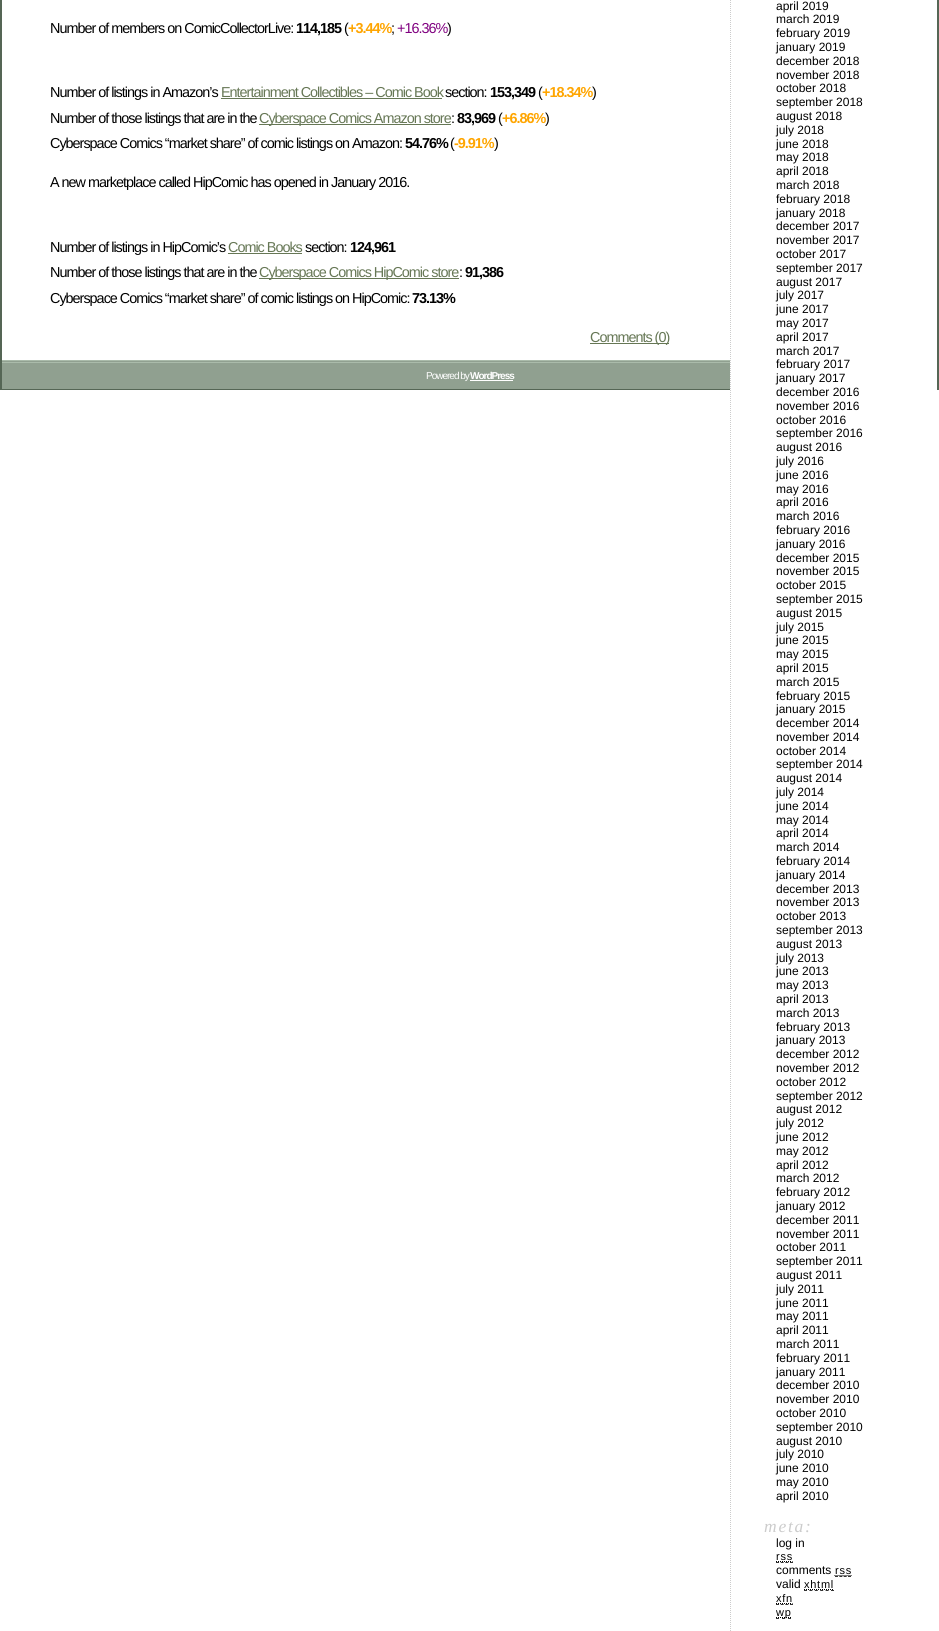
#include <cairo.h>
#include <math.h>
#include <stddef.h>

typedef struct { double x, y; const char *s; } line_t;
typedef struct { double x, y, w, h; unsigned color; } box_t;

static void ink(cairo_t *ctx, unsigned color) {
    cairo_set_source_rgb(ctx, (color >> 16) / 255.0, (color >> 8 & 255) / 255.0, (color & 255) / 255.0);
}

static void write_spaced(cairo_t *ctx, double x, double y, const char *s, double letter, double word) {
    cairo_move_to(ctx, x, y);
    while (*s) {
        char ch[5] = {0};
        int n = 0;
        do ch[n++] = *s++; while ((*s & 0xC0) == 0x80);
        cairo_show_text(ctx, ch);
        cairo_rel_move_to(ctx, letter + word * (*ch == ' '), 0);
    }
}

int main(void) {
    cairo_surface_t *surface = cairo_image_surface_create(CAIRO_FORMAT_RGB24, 939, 1631);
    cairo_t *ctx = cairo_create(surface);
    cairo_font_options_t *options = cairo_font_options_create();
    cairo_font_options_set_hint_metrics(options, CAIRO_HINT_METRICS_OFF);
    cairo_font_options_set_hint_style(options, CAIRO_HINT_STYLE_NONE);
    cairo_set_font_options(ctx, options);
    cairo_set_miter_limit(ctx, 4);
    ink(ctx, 0xFFFFFF);
    cairo_paint(ctx);
    {
        static const box_t items[] = {
            {937, 0, 2, 390, 0x556655},
            {0, 389, 939, 1, 0x556655},
            {0, 0, 2, 390, 0x556655},
        };
        for (size_t i = 0; i < sizeof items / sizeof *items; i++) {
            ink(ctx, items[i].color);
            cairo_rectangle(ctx, items[i].x, items[i].y, items[i].w, items[i].h);
            cairo_fill(ctx);
        }
    }
    cairo_select_font_face(ctx, "Liberation Sans", CAIRO_FONT_SLANT_NORMAL, CAIRO_FONT_WEIGHT_NORMAL);
    cairo_set_font_size(ctx, 14.4);
    ink(ctx, 0x000000);
    write_spaced(ctx, 50, 33, "Number of members on ComicCollectorLive:", -1, 0);
    cairo_select_font_face(ctx, "Liberation Sans", CAIRO_FONT_SLANT_NORMAL, CAIRO_FONT_WEIGHT_BOLD);
    write_spaced(ctx, 296, 33, "114,185", -1, 0);
    cairo_select_font_face(ctx, "Liberation Sans", CAIRO_FONT_SLANT_NORMAL, CAIRO_FONT_WEIGHT_NORMAL);
    write_spaced(ctx, 344, 33, "(", -1, 0);
    cairo_select_font_face(ctx, "Liberation Sans", CAIRO_FONT_SLANT_NORMAL, CAIRO_FONT_WEIGHT_BOLD);
    ink(ctx, 0xFFA500);
    write_spaced(ctx, 348, 33, "+3.44%", -1, 0);
    cairo_select_font_face(ctx, "Liberation Sans", CAIRO_FONT_SLANT_NORMAL, CAIRO_FONT_WEIGHT_NORMAL);
    ink(ctx, 0x000000);
    write_spaced(ctx, 391, 33, ";", -1, 0);
    ink(ctx, 0x800080);
    write_spaced(ctx, 397, 33, "+16.36%", -1, 0);
    ink(ctx, 0x000000);
    write_spaced(ctx, 447, 33, ")", -1, 0);
    write_spaced(ctx, 50, 97, "Number of listings in Amazon’s", -1, 0);
    ink(ctx, 0x667755);
    write_spaced(ctx, 221, 97, "Entertainment Collectibles – Comic Book", -1, 0);
    cairo_rectangle(ctx, 221, 98, 221, 1);
    cairo_fill(ctx);
    ink(ctx, 0x000000);
    write_spaced(ctx, 445, 97, "section:", -1, 0);
    cairo_select_font_face(ctx, "Liberation Sans", CAIRO_FONT_SLANT_NORMAL, CAIRO_FONT_WEIGHT_BOLD);
    write_spaced(ctx, 490, 97, "153,349", -1, 0);
    cairo_select_font_face(ctx, "Liberation Sans", CAIRO_FONT_SLANT_NORMAL, CAIRO_FONT_WEIGHT_NORMAL);
    write_spaced(ctx, 538, 97, "(", -1, 0);
    cairo_select_font_face(ctx, "Liberation Sans", CAIRO_FONT_SLANT_NORMAL, CAIRO_FONT_WEIGHT_BOLD);
    ink(ctx, 0xFFA500);
    write_spaced(ctx, 542, 97, "+18.34%", -1, 0);
    cairo_select_font_face(ctx, "Liberation Sans", CAIRO_FONT_SLANT_NORMAL, CAIRO_FONT_WEIGHT_NORMAL);
    ink(ctx, 0x000000);
    write_spaced(ctx, 592, 97, ")", -1, 0);
    write_spaced(ctx, 50, 123, "Number of those listings that are in the", -1, 0);
    ink(ctx, 0x667755);
    cairo_rectangle(ctx, 259, 124, 192, 1);
    cairo_fill(ctx);
    write_spaced(ctx, 259, 123, "Cyberspace Comics Amazon store", -1, 0);
    ink(ctx, 0x000000);
    write_spaced(ctx, 451, 123, ":", -1, 0);
    cairo_select_font_face(ctx, "Liberation Sans", CAIRO_FONT_SLANT_NORMAL, CAIRO_FONT_WEIGHT_BOLD);
    write_spaced(ctx, 457, 123, "83,969", -1, 0);
    cairo_select_font_face(ctx, "Liberation Sans", CAIRO_FONT_SLANT_NORMAL, CAIRO_FONT_WEIGHT_NORMAL);
    write_spaced(ctx, 498, 123, "(", -1, 0);
    cairo_select_font_face(ctx, "Liberation Sans", CAIRO_FONT_SLANT_NORMAL, CAIRO_FONT_WEIGHT_BOLD);
    ink(ctx, 0xFFA500);
    write_spaced(ctx, 502, 123, "+6.86%", -1, 0);
    cairo_select_font_face(ctx, "Liberation Sans", CAIRO_FONT_SLANT_NORMAL, CAIRO_FONT_WEIGHT_NORMAL);
    ink(ctx, 0x000000);
    write_spaced(ctx, 545, 123, ")", -1, 0);
    write_spaced(ctx, 50, 148, "Cyberspace Comics “market share” of comic listings on Amazon:", -1, 0);
    cairo_select_font_face(ctx, "Liberation Sans", CAIRO_FONT_SLANT_NORMAL, CAIRO_FONT_WEIGHT_BOLD);
    write_spaced(ctx, 405, 148, "54.76%", -1, 0);
    cairo_select_font_face(ctx, "Liberation Sans", CAIRO_FONT_SLANT_NORMAL, CAIRO_FONT_WEIGHT_NORMAL);
    write_spaced(ctx, 450, 148, "(", -1, 0);
    cairo_select_font_face(ctx, "Liberation Sans", CAIRO_FONT_SLANT_NORMAL, CAIRO_FONT_WEIGHT_BOLD);
    ink(ctx, 0xFFA500);
    write_spaced(ctx, 454, 148, "-9.91%", -1, 0);
    cairo_select_font_face(ctx, "Liberation Sans", CAIRO_FONT_SLANT_NORMAL, CAIRO_FONT_WEIGHT_NORMAL);
    ink(ctx, 0x000000);
    {
        static const line_t items[] = {
            {494, 148, ")"},
            {50, 187, "A new marketplace called HipComic has opened in January 2016."},
            {50, 252, "Number of listings in HipComic’s"},
        };
        for (size_t i = 0; i < sizeof items / sizeof *items; i++) {
            write_spaced(ctx, items[i].x, items[i].y, items[i].s, -1, 0);
        }
    }
    ink(ctx, 0x667755);
    write_spaced(ctx, 228, 252, "Comic Books", -1, 0);
    cairo_rectangle(ctx, 228, 253, 74, 1);
    cairo_fill(ctx);
    ink(ctx, 0x000000);
    write_spaced(ctx, 305, 252, "section:", -1, 0);
    cairo_select_font_face(ctx, "Liberation Sans", CAIRO_FONT_SLANT_NORMAL, CAIRO_FONT_WEIGHT_BOLD);
    write_spaced(ctx, 350, 252, "124,961", -1, 0);
    cairo_select_font_face(ctx, "Liberation Sans", CAIRO_FONT_SLANT_NORMAL, CAIRO_FONT_WEIGHT_NORMAL);
    write_spaced(ctx, 50, 277, "Number of those listings that are in the", -1, 0);
    ink(ctx, 0x667755);
    cairo_rectangle(ctx, 259, 278, 200, 1);
    cairo_fill(ctx);
    write_spaced(ctx, 259, 277, "Cyberspace Comics HipComic store", -1, 0);
    ink(ctx, 0x000000);
    write_spaced(ctx, 459, 277, ":", -1, 0);
    cairo_select_font_face(ctx, "Liberation Sans", CAIRO_FONT_SLANT_NORMAL, CAIRO_FONT_WEIGHT_BOLD);
    write_spaced(ctx, 465, 277, "91,386", -1, 0);
    cairo_select_font_face(ctx, "Liberation Sans", CAIRO_FONT_SLANT_NORMAL, CAIRO_FONT_WEIGHT_NORMAL);
    write_spaced(ctx, 50, 303, "Cyberspace Comics “market share” of comic listings on HipComic:", -1, 0);
    cairo_select_font_face(ctx, "Liberation Sans", CAIRO_FONT_SLANT_NORMAL, CAIRO_FONT_WEIGHT_BOLD);
    write_spaced(ctx, 412, 303, "73.13%", -1, 0);
    ink(ctx, 0x667755);
    cairo_rectangle(ctx, 590, 343, 79, 1);
    cairo_fill(ctx);
    cairo_select_font_face(ctx, "Liberation Sans", CAIRO_FONT_SLANT_NORMAL, CAIRO_FONT_WEIGHT_NORMAL);
    write_spaced(ctx, 590, 342, "Comments (0)", -1, 0);
    ink(ctx, 0xFFFFFF);
    cairo_rectangle(ctx, 730, 389, 207, 1);
    cairo_fill(ctx);
    cairo_new_path(ctx);
    cairo_move_to(ctx, 730.5, -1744);
    cairo_line_to(ctx, 730.5, 1631);
    ink(ctx, 0xCCCCCC);
    cairo_set_line_width(ctx, 1);
    cairo_set_dash(ctx, (double[]){1, 1}, 2, 0);
    cairo_stroke(ctx);
    cairo_set_font_size(ctx, 12);
    ink(ctx, 0x000000);
    {
        static const line_t items[] = {
            {776, 10, "april 2019"},
            {776, 23, "march 2019"},
            {776, 37, "february 2019"},
            {776, 51, "january 2019"},
            {776, 65, "december 2018"},
            {776, 79, "november 2018"},
            {776, 92, "october 2018"},
            {776, 106, "september 2018"},
            {776, 120, "august 2018"},
            {776, 134, "july 2018"},
            {776, 148, "june 2018"},
            {776, 161, "may 2018"},
            {776, 175, "april 2018"},
            {776, 189, "march 2018"},
            {776, 203, "february 2018"},
            {776, 217, "january 2018"},
            {776, 230, "december 2017"},
            {776, 244, "november 2017"},
            {776, 258, "october 2017"},
            {776, 272, "september 2017"},
            {776, 286, "august 2017"},
            {776, 299, "july 2017"},
            {776, 313, "june 2017"},
            {776, 327, "may 2017"},
            {776, 341, "april 2017"},
            {776, 355, "march 2017"},
            {776, 368, "february 2017"},
            {776, 382, "january 2017"},
            {776, 396, "december 2016"},
            {776, 410, "november 2016"},
            {776, 424, "october 2016"},
            {776, 437, "september 2016"},
            {776, 451, "august 2016"},
            {776, 465, "july 2016"},
            {776, 479, "june 2016"},
            {776, 493, "may 2016"},
            {776, 506, "april 2016"},
            {776, 520, "march 2016"},
            {776, 534, "february 2016"},
            {776, 548, "january 2016"},
            {776, 562, "december 2015"},
            {776, 575, "november 2015"},
            {776, 589, "october 2015"},
            {776, 603, "september 2015"},
            {776, 617, "august 2015"},
            {776, 631, "july 2015"},
            {776, 644, "june 2015"},
            {776, 658, "may 2015"},
            {776, 672, "april 2015"},
            {776, 686, "march 2015"},
            {776, 700, "february 2015"},
            {776, 713, "january 2015"},
            {776, 727, "december 2014"},
            {776, 741, "november 2014"},
            {776, 755, "october 2014"},
            {776, 768, "september 2014"},
            {776, 782, "august 2014"},
            {776, 796, "july 2014"},
            {776, 810, "june 2014"},
            {776, 824, "may 2014"},
            {776, 837, "april 2014"},
            {776, 851, "march 2014"},
            {776, 865, "february 2014"},
            {776, 879, "january 2014"},
            {776, 893, "december 2013"},
            {776, 906, "november 2013"},
            {776, 920, "october 2013"},
            {776, 934, "september 2013"},
            {776, 948, "august 2013"},
            {776, 962, "july 2013"},
            {776, 975, "june 2013"},
            {776, 989, "may 2013"},
            {776, 1003, "april 2013"},
            {776, 1017, "march 2013"},
            {776, 1031, "february 2013"},
            {776, 1044, "january 2013"},
            {776, 1058, "december 2012"},
            {776, 1072, "november 2012"},
            {776, 1086, "october 2012"},
            {776, 1100, "september 2012"},
            {776, 1113, "august 2012"},
            {776, 1127, "july 2012"},
            {776, 1141, "june 2012"},
            {776, 1155, "may 2012"},
            {776, 1169, "april 2012"},
            {776, 1182, "march 2012"},
            {776, 1196, "february 2012"},
            {776, 1210, "january 2012"},
            {776, 1224, "december 2011"},
            {776, 1238, "november 2011"},
            {776, 1251, "october 2011"},
            {776, 1265, "september 2011"},
            {776, 1279, "august 2011"},
            {776, 1293, "july 2011"},
            {776, 1307, "june 2011"},
            {776, 1320, "may 2011"},
            {776, 1334, "april 2011"},
            {776, 1348, "march 2011"},
            {776, 1362, "february 2011"},
            {776, 1376, "january 2011"},
            {776, 1389, "december 2010"},
            {776, 1403, "november 2010"},
            {776, 1417, "october 2010"},
            {776, 1431, "september 2010"},
            {776, 1445, "august 2010"},
            {776, 1458, "july 2010"},
            {776, 1472, "june 2010"},
            {776, 1486, "may 2010"},
            {776, 1500, "april 2010"},
        };
        for (size_t i = 0; i < sizeof items / sizeof *items; i++) {
            cairo_move_to(ctx, items[i].x, items[i].y);
            cairo_show_text(ctx, items[i].s);
        }
    }
    cairo_select_font_face(ctx, "Liberation Serif", CAIRO_FONT_SLANT_ITALIC, CAIRO_FONT_WEIGHT_NORMAL);
    cairo_set_font_size(ctx, 17.5);
    ink(ctx, 0xCCCCCC);
    write_spaced(ctx, 764, 1532, "meta:", 1.75, 0);
    cairo_select_font_face(ctx, "Liberation Sans", CAIRO_FONT_SLANT_NORMAL, CAIRO_FONT_WEIGHT_NORMAL);
    cairo_set_font_size(ctx, 12);
    ink(ctx, 0x000000);
    cairo_move_to(ctx, 776, 1547);
    cairo_show_text(ctx, "log in");
    cairo_set_font_size(ctx, 11);
    write_spaced(ctx, 776, 1560, "rss", 0.75, 0);
    cairo_new_path(ctx);
    cairo_move_to(ctx, 776, 1562.5);
    cairo_line_to(ctx, 793, 1562.5);
    ink(ctx, 0x333333);
    cairo_set_dash(ctx, (double[]){3, 1.67}, 2, 0);
    cairo_stroke(ctx);
    cairo_new_path(ctx);
    cairo_move_to(ctx, 776, 1561.5);
    cairo_line_to(ctx, 792.5, 1561.5);
    ink(ctx, 0x000000);
    cairo_set_dash(ctx, (double[]){1, 1}, 2, 0);
    cairo_stroke(ctx);
    cairo_set_font_size(ctx, 12);
    cairo_move_to(ctx, 776, 1574);
    cairo_show_text(ctx, "comments");
    cairo_set_font_size(ctx, 11);
    write_spaced(ctx, 835, 1574, "rss", 0.75, 0);
    cairo_new_path(ctx);
    cairo_move_to(ctx, 835, 1576.5);
    cairo_line_to(ctx, 851, 1576.5);
    ink(ctx, 0x333333);
    cairo_set_dash(ctx, (double[]){3, 1.33}, 2, 0);
    cairo_stroke(ctx);
    cairo_new_path(ctx);
    cairo_move_to(ctx, 834.5, 1575.5);
    cairo_line_to(ctx, 851.5, 1575.5);
    ink(ctx, 0x000000);
    cairo_set_dash(ctx, (double[]){1, 1}, 2, 0);
    cairo_stroke(ctx);
    cairo_set_font_size(ctx, 12);
    cairo_move_to(ctx, 776, 1588);
    cairo_show_text(ctx, "valid");
    cairo_set_font_size(ctx, 11);
    write_spaced(ctx, 804, 1588, "xhtml", 0.75, 0);
    cairo_new_path(ctx);
    cairo_move_to(ctx, 804, 1590.5);
    cairo_line_to(ctx, 834, 1590.5);
    ink(ctx, 0x333333);
    cairo_set_dash(ctx, (double[]){3, 2.4}, 2, 0);
    cairo_stroke(ctx);
    cairo_new_path(ctx);
    cairo_move_to(ctx, 804, 1589.5);
    cairo_line_to(ctx, 833.5, 1589.5);
    ink(ctx, 0x000000);
    cairo_set_dash(ctx, (double[]){1, 1}, 2, 0);
    cairo_stroke(ctx);
    write_spaced(ctx, 776, 1602, "xfn", 0.75, 0);
    cairo_new_path(ctx);
    cairo_move_to(ctx, 776, 1604.5);
    cairo_line_to(ctx, 793, 1604.5);
    ink(ctx, 0x333333);
    cairo_set_dash(ctx, (double[]){3, 1.67}, 2, 0);
    cairo_stroke(ctx);
    cairo_new_path(ctx);
    cairo_move_to(ctx, 776, 1603.5);
    cairo_line_to(ctx, 792.5, 1603.5);
    ink(ctx, 0x000000);
    cairo_set_dash(ctx, (double[]){1, 1}, 2, 0);
    cairo_stroke(ctx);
    cairo_new_path(ctx);
    cairo_move_to(ctx, 776, 1618.5);
    cairo_line_to(ctx, 779, 1618.5);
    cairo_move_to(ctx, 782, 1618.5);
    cairo_line_to(ctx, 785, 1618.5);
    cairo_move_to(ctx, 788, 1618.5);
    cairo_line_to(ctx, 791, 1618.5);
    ink(ctx, 0x333333);
    cairo_set_dash(ctx, NULL, 0, 0);
    cairo_stroke(ctx);
    cairo_new_path(ctx);
    cairo_move_to(ctx, 776, 1617.5);
    cairo_line_to(ctx, 791.5, 1617.5);
    ink(ctx, 0x000000);
    cairo_set_dash(ctx, (double[]){1, 1}, 2, 0);
    cairo_stroke(ctx);
    write_spaced(ctx, 776, 1616, "wp", 0.75, 0);
    {
        static const box_t items[] = {
            {2, 361, 728, 28, 0x90A090},
            {2, 360, 728, 1, 0xAABBAA},
            {2, 362, 728, 1, 0xAABBAA},
        };
        for (size_t i = 0; i < sizeof items / sizeof *items; i++) {
            ink(ctx, items[i].color);
            cairo_rectangle(ctx, items[i].x, items[i].y, items[i].w, items[i].h);
            cairo_fill(ctx);
        }
    }
    cairo_set_font_size(ctx, 10);
    ink(ctx, 0xFFFFFF);
    write_spaced(ctx, 426, 379, "Powered by", -1, 0);
    cairo_rectangle(ctx, 470, 380, 43, 1);
    cairo_fill(ctx);
    cairo_select_font_face(ctx, "Liberation Sans", CAIRO_FONT_SLANT_NORMAL, CAIRO_FONT_WEIGHT_BOLD);
    write_spaced(ctx, 470, 379, "WordPress", -1, 0);
    cairo_surface_write_to_png(surface, "image.png");
    cairo_font_options_destroy(options);
    cairo_destroy(ctx);
    cairo_surface_destroy(surface);
    return 0;
}
